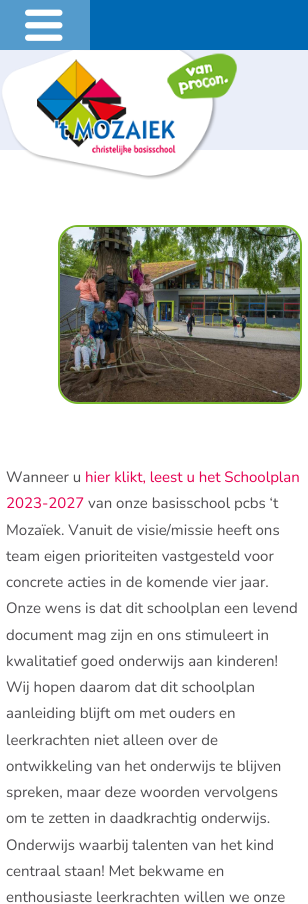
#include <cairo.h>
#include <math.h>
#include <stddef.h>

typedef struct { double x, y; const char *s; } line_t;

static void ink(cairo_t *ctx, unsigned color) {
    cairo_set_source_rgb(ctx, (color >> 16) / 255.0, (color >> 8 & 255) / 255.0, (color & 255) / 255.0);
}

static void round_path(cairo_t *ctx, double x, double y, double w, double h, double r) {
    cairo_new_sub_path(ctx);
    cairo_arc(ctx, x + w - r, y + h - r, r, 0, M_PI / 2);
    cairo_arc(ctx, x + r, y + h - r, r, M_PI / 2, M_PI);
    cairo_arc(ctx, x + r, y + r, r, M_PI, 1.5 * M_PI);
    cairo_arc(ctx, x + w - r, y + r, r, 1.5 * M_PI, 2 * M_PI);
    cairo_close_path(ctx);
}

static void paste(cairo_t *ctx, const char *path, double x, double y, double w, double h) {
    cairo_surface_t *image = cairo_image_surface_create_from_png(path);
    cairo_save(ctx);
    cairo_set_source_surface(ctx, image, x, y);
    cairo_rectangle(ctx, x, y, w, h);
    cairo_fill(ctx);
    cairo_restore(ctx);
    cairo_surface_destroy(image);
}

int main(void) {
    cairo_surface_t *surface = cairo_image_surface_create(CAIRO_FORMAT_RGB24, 308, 904);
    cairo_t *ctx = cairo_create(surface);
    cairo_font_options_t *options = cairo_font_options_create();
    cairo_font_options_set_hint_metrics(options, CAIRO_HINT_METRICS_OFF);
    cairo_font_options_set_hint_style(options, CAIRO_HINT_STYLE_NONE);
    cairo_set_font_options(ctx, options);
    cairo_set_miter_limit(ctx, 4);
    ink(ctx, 0xFFFFFF);
    cairo_paint(ctx);
    ink(ctx, 0x0069B3);
    cairo_rectangle(ctx, 90, 0, 218, 50);
    cairo_fill(ctx);
    ink(ctx, 0x549BCC);
    cairo_rectangle(ctx, 0, 0, 90, 50);
    cairo_fill(ctx);
    paste(ctx, "media/1.png", 25, 9, 38, 32);
    ink(ctx, 0xEAEEF9);
    cairo_rectangle(ctx, 0, 50, 308, 100);
    cairo_fill(ctx);
    paste(ctx, "media/2.png", 1, 50, 236, 130);
    paste(ctx, "media/3.png", 58, 225, 244, 179);
    round_path(ctx, 59, 226, 242, 177, 19);
    ink(ctx, 0x77B72B);
    cairo_stroke(ctx);
    paste(ctx, "media/4.png", 60, 227, 240, 175);
    cairo_select_font_face(ctx, "Nunito", CAIRO_FONT_SLANT_NORMAL, CAIRO_FONT_WEIGHT_NORMAL);
    cairo_set_font_size(ctx, 15);
    ink(ctx, 0x4E4D50);
    cairo_move_to(ctx, 6, 482);
    cairo_show_text(ctx, "Wanneer u");
    ink(ctx, 0xE40050);
    cairo_move_to(ctx, 85, 482);
    cairo_show_text(ctx, "hier klikt, leest u het Schoolplan");
    cairo_move_to(ctx, 6, 508);
    cairo_show_text(ctx, "2023-2027");
    ink(ctx, 0x4E4D50);
    {
        static const line_t items[] = {
            {88, 508, "van onze basisschool pcbs ‘t"},
            {6, 535, "Mozaïek. Vanuit de visie/missie heeft ons"},
            {6, 561, "team eigen prioriteiten vastgesteld voor"},
            {6, 587, "concrete acties in de komende vier jaar."},
            {6, 613, "Onze wens is dat dit schoolplan een levend"},
            {6, 640, "document mag zijn en ons stimuleert in"},
            {6, 666, "kwalitatief goed onderwijs aan kinderen!"},
            {6, 692, "Wij hopen daarom dat dit schoolplan"},
            {6, 718, "aanleiding blijft om met ouders en"},
            {6, 745, "leerkrachten niet alleen over de"},
            {6, 771, "ontwikkeling van het onderwijs te blijven"},
            {6, 797, "spreken, maar deze woorden vervolgens"},
            {6, 823, "om te zetten in daadkrachtig onderwijs."},
            {6, 850, "Onderwijs waarbij talenten van het kind"},
            {6, 876, "centraal staan! Met bekwame en"},
            {6, 902, "enthousiaste leerkrachten willen we onze"},
        };
        for (size_t i = 0; i < sizeof items / sizeof *items; i++) {
            cairo_move_to(ctx, items[i].x, items[i].y);
            cairo_show_text(ctx, items[i].s);
        }
    }
    cairo_surface_write_to_png(surface, "image.png");
    cairo_font_options_destroy(options);
    cairo_destroy(ctx);
    cairo_surface_destroy(surface);
    return 0;
}
